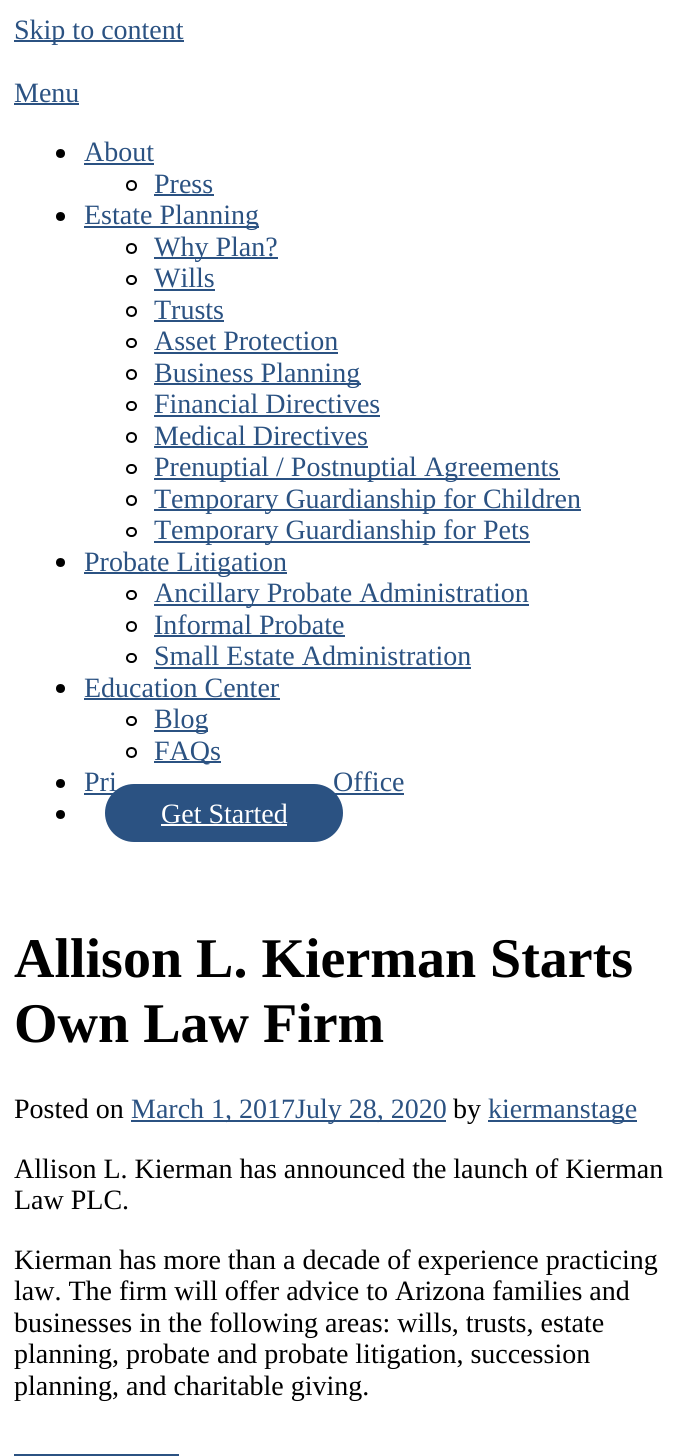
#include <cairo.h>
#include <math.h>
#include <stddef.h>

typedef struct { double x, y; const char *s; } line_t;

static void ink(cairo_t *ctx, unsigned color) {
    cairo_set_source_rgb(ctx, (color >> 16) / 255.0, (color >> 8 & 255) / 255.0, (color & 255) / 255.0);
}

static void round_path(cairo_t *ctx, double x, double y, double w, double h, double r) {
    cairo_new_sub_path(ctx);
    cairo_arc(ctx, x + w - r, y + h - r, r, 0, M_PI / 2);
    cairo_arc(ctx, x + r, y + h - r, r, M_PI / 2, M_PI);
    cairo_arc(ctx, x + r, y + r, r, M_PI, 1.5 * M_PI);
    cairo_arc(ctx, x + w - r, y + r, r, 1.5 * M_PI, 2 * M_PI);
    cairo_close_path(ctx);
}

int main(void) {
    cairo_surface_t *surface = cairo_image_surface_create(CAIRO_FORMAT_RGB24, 685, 1456);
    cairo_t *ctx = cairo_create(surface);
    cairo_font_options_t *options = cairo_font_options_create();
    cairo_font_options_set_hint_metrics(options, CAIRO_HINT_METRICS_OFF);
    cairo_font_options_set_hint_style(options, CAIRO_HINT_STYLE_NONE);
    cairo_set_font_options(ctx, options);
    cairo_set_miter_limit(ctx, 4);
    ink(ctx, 0xFFFFFF);
    cairo_paint(ctx);
    ink(ctx, 0x2B5282);
    cairo_rectangle(ctx, 14, 40, 170, 2);
    cairo_fill(ctx);
    cairo_select_font_face(ctx, "Liberation Serif", CAIRO_FONT_SLANT_NORMAL, CAIRO_FONT_WEIGHT_NORMAL);
    cairo_set_font_size(ctx, 28);
    cairo_move_to(ctx, 14, 39);
    cairo_show_text(ctx, "Skip to content");
    cairo_move_to(ctx, 14, 102);
    cairo_show_text(ctx, "Menu");
    cairo_rectangle(ctx, 14, 103, 65, 2);
    cairo_fill(ctx);
    ink(ctx, 0x000000);
    cairo_arc(ctx, 60.5, 153.5, 4.5, 0, 2 * M_PI);
    cairo_fill(ctx);
    ink(ctx, 0x2B5282);
    cairo_move_to(ctx, 84, 161);
    cairo_show_text(ctx, "About");
    cairo_rectangle(ctx, 84, 163, 70, 2);
    cairo_fill(ctx);
    cairo_arc(ctx, 131.5, 185.5, 4.5, 0, 2 * M_PI);
    ink(ctx, 0x000000);
    cairo_stroke(ctx);
    ink(ctx, 0x2B5282);
    cairo_move_to(ctx, 154, 193);
    cairo_show_text(ctx, "Press");
    cairo_rectangle(ctx, 154, 194, 60, 2);
    cairo_fill(ctx);
    ink(ctx, 0x000000);
    cairo_arc(ctx, 60.5, 216.5, 4.5, 0, 2 * M_PI);
    cairo_fill(ctx);
    ink(ctx, 0x2B5282);
    cairo_rectangle(ctx, 84, 226, 175, 2);
    cairo_fill(ctx);
    cairo_move_to(ctx, 84, 224);
    cairo_show_text(ctx, "Estate Planning");
    cairo_new_path(ctx);
    cairo_arc(ctx, 131.5, 248.5, 4.5, 0, 2 * M_PI);
    ink(ctx, 0x000000);
    cairo_stroke(ctx);
    ink(ctx, 0x2B5282);
    cairo_rectangle(ctx, 154, 257, 124, 2);
    cairo_fill(ctx);
    cairo_move_to(ctx, 154, 256);
    cairo_show_text(ctx, "Why Plan?");
    round_path(ctx, 127, 276, 9, 8, 4);
    ink(ctx, 0x000000);
    cairo_stroke(ctx);
    ink(ctx, 0x2B5282);
    cairo_move_to(ctx, 154, 287);
    cairo_show_text(ctx, "Wills");
    cairo_rectangle(ctx, 154, 289, 61, 2);
    cairo_fill(ctx);
    cairo_arc(ctx, 131.5, 311.5, 4.5, 0, 2 * M_PI);
    ink(ctx, 0x000000);
    cairo_stroke(ctx);
    ink(ctx, 0x2B5282);
    cairo_move_to(ctx, 154, 319);
    cairo_show_text(ctx, "Trusts");
    cairo_rectangle(ctx, 154, 320, 70, 2);
    cairo_fill(ctx);
    round_path(ctx, 127, 339, 9, 8, 4);
    ink(ctx, 0x000000);
    cairo_stroke(ctx);
    ink(ctx, 0x2B5282);
    cairo_move_to(ctx, 154, 350);
    cairo_show_text(ctx, "Asset Protection");
    cairo_rectangle(ctx, 154, 352, 184, 2);
    cairo_fill(ctx);
    cairo_arc(ctx, 131.5, 374.5, 4.5, 0, 2 * M_PI);
    ink(ctx, 0x000000);
    cairo_stroke(ctx);
    ink(ctx, 0x2B5282);
    cairo_rectangle(ctx, 154, 383, 207, 2);
    cairo_fill(ctx);
    cairo_move_to(ctx, 154, 382);
    cairo_show_text(ctx, "Business Planning");
    round_path(ctx, 127, 402, 9, 8, 4);
    ink(ctx, 0x000000);
    cairo_stroke(ctx);
    ink(ctx, 0x2B5282);
    cairo_move_to(ctx, 154, 413);
    cairo_show_text(ctx, "Financial Directives");
    cairo_rectangle(ctx, 154, 415, 226, 2);
    cairo_fill(ctx);
    cairo_arc(ctx, 131.5, 437.5, 4.5, 0, 2 * M_PI);
    ink(ctx, 0x000000);
    cairo_stroke(ctx);
    ink(ctx, 0x2B5282);
    cairo_move_to(ctx, 154, 445);
    cairo_show_text(ctx, "Medical Directives");
    cairo_rectangle(ctx, 154, 446, 214, 2);
    cairo_fill(ctx);
    round_path(ctx, 127, 465, 9, 8, 4);
    ink(ctx, 0x000000);
    cairo_stroke(ctx);
    ink(ctx, 0x2B5282);
    cairo_rectangle(ctx, 154, 478, 406, 2);
    cairo_fill(ctx);
    cairo_move_to(ctx, 154, 476);
    cairo_show_text(ctx, "Prenuptial / Postnuptial Agreements");
    cairo_new_path(ctx);
    cairo_arc(ctx, 131.5, 500.5, 4.5, 0, 2 * M_PI);
    ink(ctx, 0x000000);
    cairo_stroke(ctx);
    ink(ctx, 0x2B5282);
    cairo_rectangle(ctx, 154, 509, 427, 2);
    cairo_fill(ctx);
    cairo_move_to(ctx, 154, 508);
    cairo_show_text(ctx, "Temporary Guardianship for Children");
    round_path(ctx, 127, 528, 9, 8, 4);
    ink(ctx, 0x000000);
    cairo_stroke(ctx);
    ink(ctx, 0x2B5282);
    cairo_rectangle(ctx, 154, 541, 376, 2);
    cairo_fill(ctx);
    cairo_move_to(ctx, 154, 539);
    cairo_show_text(ctx, "Temporary Guardianship for Pets");
    ink(ctx, 0x000000);
    cairo_new_path(ctx);
    cairo_arc(ctx, 60.5, 562.5, 4.5, 0, 2 * M_PI);
    cairo_fill(ctx);
    ink(ctx, 0x2B5282);
    cairo_rectangle(ctx, 84, 572, 203, 2);
    cairo_fill(ctx);
    cairo_move_to(ctx, 84, 571);
    cairo_show_text(ctx, "Probate Litigation");
    round_path(ctx, 127, 591, 9, 8, 4);
    ink(ctx, 0x000000);
    cairo_stroke(ctx);
    ink(ctx, 0x2B5282);
    cairo_rectangle(ctx, 154, 604, 375, 2);
    cairo_fill(ctx);
    cairo_move_to(ctx, 154, 602);
    cairo_show_text(ctx, "Ancillary Probate Administration");
    cairo_new_path(ctx);
    cairo_arc(ctx, 131.5, 626.5, 4.5, 0, 2 * M_PI);
    ink(ctx, 0x000000);
    cairo_stroke(ctx);
    ink(ctx, 0x2B5282);
    cairo_move_to(ctx, 154, 634);
    cairo_show_text(ctx, "Informal Probate");
    cairo_rectangle(ctx, 154, 635, 191, 2);
    cairo_fill(ctx);
    round_path(ctx, 127, 654, 9, 8, 4);
    ink(ctx, 0x000000);
    cairo_stroke(ctx);
    ink(ctx, 0x2B5282);
    cairo_move_to(ctx, 154, 665);
    cairo_show_text(ctx, "Small Estate Administration");
    cairo_rectangle(ctx, 154, 667, 317, 2);
    cairo_fill(ctx);
    ink(ctx, 0x000000);
    cairo_arc(ctx, 60.5, 688.5, 4.5, 0, 2 * M_PI);
    cairo_fill(ctx);
    ink(ctx, 0x2B5282);
    cairo_move_to(ctx, 84, 697);
    cairo_show_text(ctx, "Education Center");
    cairo_rectangle(ctx, 84, 698, 196, 2);
    cairo_fill(ctx);
    round_path(ctx, 127, 717, 9, 8, 4);
    ink(ctx, 0x000000);
    cairo_stroke(ctx);
    ink(ctx, 0x2B5282);
    cairo_rectangle(ctx, 154, 730, 54, 2);
    cairo_fill(ctx);
    cairo_move_to(ctx, 154, 728);
    cairo_show_text(ctx, "Blog");
    cairo_new_path(ctx);
    cairo_arc(ctx, 131.5, 752.5, 4.5, 0, 2 * M_PI);
    ink(ctx, 0x000000);
    cairo_stroke(ctx);
    ink(ctx, 0x2B5282);
    cairo_rectangle(ctx, 154, 761, 67, 2);
    cairo_fill(ctx);
    cairo_move_to(ctx, 154, 760);
    cairo_show_text(ctx, "FAQs");
    ink(ctx, 0x000000);
    cairo_new_path(ctx);
    cairo_arc(ctx, 60.5, 783.5, 4.5, 0, 2 * M_PI);
    cairo_fill(ctx);
    ink(ctx, 0x2B5282);
    cairo_move_to(ctx, 84, 791);
    cairo_show_text(ctx, "Pri");
    cairo_rectangle(ctx, 84, 793, 320, 2);
    cairo_fill(ctx);
    cairo_move_to(ctx, 333, 791);
    cairo_show_text(ctx, "Office");
    ink(ctx, 0x000000);
    cairo_new_path(ctx);
    cairo_arc(ctx, 60.5, 814.5, 4.5, 0, 2 * M_PI);
    cairo_fill(ctx);
    ink(ctx, 0x2B5282);
    round_path(ctx, 105, 784, 238, 58, 29);
    cairo_fill(ctx);
    ink(ctx, 0xFFFFFF);
    cairo_move_to(ctx, 161, 823);
    cairo_show_text(ctx, "Get Started");
    cairo_rectangle(ctx, 161, 824, 126, 2);
    cairo_fill(ctx);
    cairo_select_font_face(ctx, "Liberation Serif", CAIRO_FONT_SLANT_NORMAL, CAIRO_FONT_WEIGHT_BOLD);
    cairo_set_font_size(ctx, 56);
    ink(ctx, 0x000000);
    cairo_move_to(ctx, 14, 977);
    cairo_show_text(ctx, "Allison L. Kierman Starts");
    cairo_move_to(ctx, 14, 1042);
    cairo_show_text(ctx, "Own Law Firm");
    cairo_select_font_face(ctx, "Liberation Serif", CAIRO_FONT_SLANT_NORMAL, CAIRO_FONT_WEIGHT_NORMAL);
    cairo_set_font_size(ctx, 28);
    cairo_move_to(ctx, 14, 1118);
    cairo_show_text(ctx, "Posted on");
    ink(ctx, 0x2B5282);
    cairo_rectangle(ctx, 131, 1120, 315, 2);
    cairo_fill(ctx);
    cairo_move_to(ctx, 131, 1118);
    cairo_show_text(ctx, "March 1, 2017July 28, 2020");
    ink(ctx, 0x000000);
    cairo_move_to(ctx, 453, 1118);
    cairo_show_text(ctx, "by");
    ink(ctx, 0x2B5282);
    cairo_rectangle(ctx, 488, 1120, 149, 2);
    cairo_fill(ctx);
    cairo_move_to(ctx, 488, 1118);
    cairo_show_text(ctx, "kiermanstage");
    ink(ctx, 0x000000);
    {
        static const line_t items[] = {
            {14, 1178, "Allison L. Kierman has announced the launch of Kierman"},
            {14, 1209, "Law PLC."},
            {14, 1269, "Kierman has more than a decade of experience practicing"},
            {14, 1300, "law. The firm will offer advice to Arizona families and"},
            {14, 1332, "businesses in the following areas: wills, trusts, estate"},
            {14, 1363, "planning, probate and probate litigation, succession"},
            {14, 1395, "planning, and charitable giving."},
        };
        for (size_t i = 0; i < sizeof items / sizeof *items; i++) {
            cairo_move_to(ctx, items[i].x, items[i].y);
            cairo_show_text(ctx, items[i].s);
        }
    }
    ink(ctx, 0x2B5282);
    cairo_rectangle(ctx, 14, 1454, 165, 2);
    cairo_fill(ctx);
    cairo_surface_write_to_png(surface, "image.png");
    cairo_font_options_destroy(options);
    cairo_destroy(ctx);
    cairo_surface_destroy(surface);
    return 0;
}
